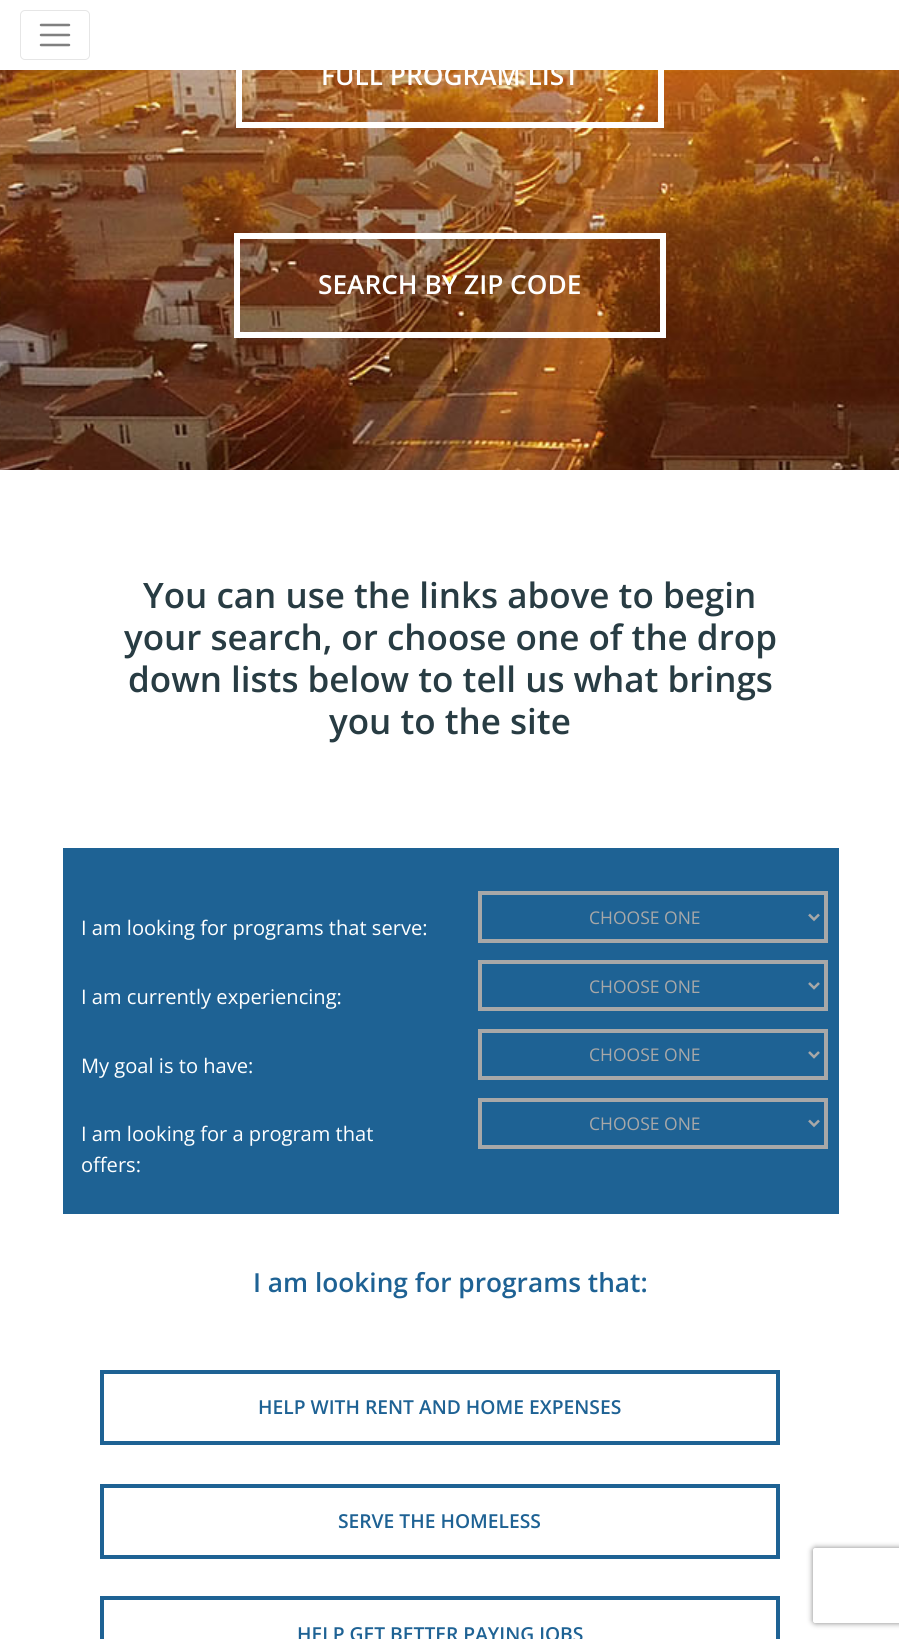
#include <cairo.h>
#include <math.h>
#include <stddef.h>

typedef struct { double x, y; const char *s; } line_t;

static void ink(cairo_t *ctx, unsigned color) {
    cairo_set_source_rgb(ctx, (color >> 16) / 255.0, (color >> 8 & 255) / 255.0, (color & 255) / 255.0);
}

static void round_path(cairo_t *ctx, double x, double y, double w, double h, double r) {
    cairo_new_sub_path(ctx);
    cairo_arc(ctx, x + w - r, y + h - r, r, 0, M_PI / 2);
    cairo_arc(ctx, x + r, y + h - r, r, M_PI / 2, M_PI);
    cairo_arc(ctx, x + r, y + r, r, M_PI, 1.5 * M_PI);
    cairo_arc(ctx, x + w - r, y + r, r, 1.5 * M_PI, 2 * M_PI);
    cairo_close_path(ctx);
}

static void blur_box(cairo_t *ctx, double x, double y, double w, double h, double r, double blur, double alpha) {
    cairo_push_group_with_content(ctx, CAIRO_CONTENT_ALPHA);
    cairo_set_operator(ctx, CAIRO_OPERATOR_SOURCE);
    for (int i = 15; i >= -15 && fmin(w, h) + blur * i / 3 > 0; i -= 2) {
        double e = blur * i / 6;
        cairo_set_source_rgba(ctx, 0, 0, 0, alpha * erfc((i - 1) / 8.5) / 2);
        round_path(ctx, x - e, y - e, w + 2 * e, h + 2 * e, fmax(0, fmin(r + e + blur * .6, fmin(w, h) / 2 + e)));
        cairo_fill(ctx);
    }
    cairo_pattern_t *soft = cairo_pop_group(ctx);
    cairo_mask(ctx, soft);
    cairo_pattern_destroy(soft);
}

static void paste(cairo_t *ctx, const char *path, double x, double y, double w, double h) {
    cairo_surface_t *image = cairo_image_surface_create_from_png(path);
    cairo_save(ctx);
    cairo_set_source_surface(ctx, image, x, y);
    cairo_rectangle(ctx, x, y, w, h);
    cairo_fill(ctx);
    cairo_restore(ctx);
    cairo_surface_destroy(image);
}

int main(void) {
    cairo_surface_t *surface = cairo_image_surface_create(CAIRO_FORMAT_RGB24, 899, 1639);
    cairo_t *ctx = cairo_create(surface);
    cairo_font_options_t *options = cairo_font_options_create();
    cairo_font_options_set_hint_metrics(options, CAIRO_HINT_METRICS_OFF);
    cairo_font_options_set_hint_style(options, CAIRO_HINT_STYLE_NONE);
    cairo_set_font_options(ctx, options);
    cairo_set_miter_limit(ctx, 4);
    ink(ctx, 0xFFFFFF);
    cairo_paint(ctx);
    round_path(ctx, 20.5, 10.5, 69, 49, 4.5);
    ink(ctx, 0xE6E6E6);
    cairo_set_line_width(ctx, 1);
    cairo_stroke(ctx);
    cairo_new_path(ctx);
    cairo_move_to(ctx, 41, 25);
    cairo_line_to(ctx, 69, 25);
    cairo_move_to(ctx, 41, 35);
    cairo_line_to(ctx, 69, 35);
    cairo_move_to(ctx, 41, 45);
    cairo_line_to(ctx, 69, 45);
    ink(ctx, 0x808080);
    cairo_set_line_width(ctx, 2.5);
    cairo_set_line_cap(ctx, CAIRO_LINE_CAP_ROUND);
    cairo_stroke(ctx);
    paste(ctx, "media/1.png", 0, 70, 899, 400);
    cairo_rectangle(ctx, 239, 27, 422, 98);
    ink(ctx, 0xFFFFFF);
    cairo_set_line_width(ctx, 6);
    cairo_set_line_cap(ctx, CAIRO_LINE_CAP_BUTT);
    cairo_stroke(ctx);
    cairo_select_font_face(ctx, "Open Sans SemiBold", CAIRO_FONT_SLANT_NORMAL, CAIRO_FONT_WEIGHT_NORMAL);
    cairo_set_font_size(ctx, 26.25);
    cairo_move_to(ctx, 321, 85);
    cairo_show_text(ctx, "FULL PROGRAM LIST");
    cairo_rectangle(ctx, 237, 236, 426, 99);
    cairo_stroke(ctx);
    cairo_move_to(ctx, 318, 294);
    cairo_show_text(ctx, "SEARCH BY ZIP CODE");
    cairo_set_font_size(ctx, 35);
    ink(ctx, 0x283C43);
    {
        static const line_t items[] = {
            {143, 608, "You can use the links above to begin"},
            {124, 650, "your search, or choose one of the drop"},
            {128, 692, "down lists below to tell us what brings"},
            {329, 734, "you to the site"},
        };
        for (size_t i = 0; i < sizeof items / sizeof *items; i++) {
            cairo_move_to(ctx, items[i].x, items[i].y);
            cairo_show_text(ctx, items[i].s);
        }
    }
    ink(ctx, 0x1E6294);
    cairo_rectangle(ctx, 63, 848, 776, 366);
    cairo_fill(ctx);
    cairo_select_font_face(ctx, "Open Sans", CAIRO_FONT_SLANT_NORMAL, CAIRO_FONT_WEIGHT_NORMAL);
    cairo_set_font_size(ctx, 20.1);
    ink(ctx, 0xFFFFFF);
    cairo_move_to(ctx, 81, 935);
    cairo_show_text(ctx, "I am looking for programs that serve:");
    cairo_rectangle(ctx, 480, 893, 346, 48);
    ink(ctx, 0xA8A8A8);
    cairo_set_line_width(ctx, 4);
    cairo_stroke(ctx);
    cairo_new_path(ctx);
    cairo_move_to(ctx, 809, 914.5);
    cairo_line_to(ctx, 814, 919.5);
    cairo_line_to(ctx, 819, 914.5);
    cairo_set_line_width(ctx, 2.5);
    cairo_stroke(ctx);
    cairo_set_font_size(ctx, 17.5);
    cairo_move_to(ctx, 589, 924);
    cairo_show_text(ctx, "CHOOSE ONE");
    cairo_set_font_size(ctx, 20.1);
    ink(ctx, 0xFFFFFF);
    cairo_move_to(ctx, 81, 1004);
    cairo_show_text(ctx, "I am currently experiencing:");
    cairo_rectangle(ctx, 480, 962, 346, 47);
    ink(ctx, 0xA8A8A8);
    cairo_set_line_width(ctx, 4);
    cairo_stroke(ctx);
    cairo_new_path(ctx);
    cairo_move_to(ctx, 809, 983);
    cairo_line_to(ctx, 814, 988);
    cairo_line_to(ctx, 819, 983);
    cairo_set_line_width(ctx, 2.5);
    cairo_stroke(ctx);
    cairo_set_font_size(ctx, 17.5);
    cairo_move_to(ctx, 589, 993);
    cairo_show_text(ctx, "CHOOSE ONE");
    cairo_rectangle(ctx, 480, 1031, 346, 47);
    cairo_set_line_width(ctx, 4);
    cairo_stroke(ctx);
    cairo_new_path(ctx);
    cairo_move_to(ctx, 809, 1052);
    cairo_line_to(ctx, 814, 1057);
    cairo_line_to(ctx, 819, 1052);
    cairo_set_line_width(ctx, 2.5);
    cairo_stroke(ctx);
    cairo_move_to(ctx, 589, 1061);
    cairo_show_text(ctx, "CHOOSE ONE");
    cairo_set_font_size(ctx, 20.1);
    ink(ctx, 0xFFFFFF);
    {
        static const line_t items[] = {
            {81, 1073, "My goal is to have:"},
            {81, 1141, "I am looking for a program that"},
            {81, 1172, "offers:"},
        };
        for (size_t i = 0; i < sizeof items / sizeof *items; i++) {
            cairo_move_to(ctx, items[i].x, items[i].y);
            cairo_show_text(ctx, items[i].s);
        }
    }
    cairo_rectangle(ctx, 480, 1100, 346, 47);
    ink(ctx, 0xA8A8A8);
    cairo_set_line_width(ctx, 4);
    cairo_stroke(ctx);
    cairo_new_path(ctx);
    cairo_move_to(ctx, 809, 1120.5);
    cairo_line_to(ctx, 814, 1125.5);
    cairo_line_to(ctx, 819, 1120.5);
    cairo_set_line_width(ctx, 2.5);
    cairo_stroke(ctx);
    cairo_set_font_size(ctx, 17.5);
    cairo_move_to(ctx, 589, 1130);
    cairo_show_text(ctx, "CHOOSE ONE");
    cairo_select_font_face(ctx, "Open Sans SemiBold", CAIRO_FONT_SLANT_NORMAL, CAIRO_FONT_WEIGHT_NORMAL);
    cairo_set_font_size(ctx, 26.25);
    ink(ctx, 0x1E6294);
    cairo_move_to(ctx, 253, 1292);
    cairo_show_text(ctx, "I am looking for programs that:");
    cairo_rectangle(ctx, 102, 1372, 676, 71);
    cairo_set_line_width(ctx, 4);
    cairo_stroke(ctx);
    cairo_set_font_size(ctx, 19.25);
    cairo_move_to(ctx, 258, 1414);
    cairo_show_text(ctx, "HELP WITH RENT AND HOME EXPENSES");
    cairo_rectangle(ctx, 102, 1486, 676, 71);
    cairo_stroke(ctx);
    cairo_move_to(ctx, 338, 1528);
    cairo_show_text(ctx, "SERVE THE HOMELESS");
    cairo_rectangle(ctx, 102, 1598, 676, 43);
    cairo_stroke(ctx);
    cairo_move_to(ctx, 297, 1641);
    cairo_show_text(ctx, "HELP GET BETTER PAYING JOBS");
    cairo_save(ctx);
    cairo_set_fill_rule(ctx, CAIRO_FILL_RULE_EVEN_ODD);
    cairo_new_path(ctx);
    cairo_move_to(ctx, 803, 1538);
    cairo_line_to(ctx, 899, 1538);
    cairo_line_to(ctx, 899, 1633);
    cairo_line_to(ctx, 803, 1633);
    cairo_close_path(ctx);
    cairo_move_to(ctx, 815.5, 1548);
    cairo_line_to(ctx, 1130.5, 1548);
    cairo_curve_to(ctx, 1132, 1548, 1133, 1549, 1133, 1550.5);
    cairo_line_to(ctx, 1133, 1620.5);
    cairo_curve_to(ctx, 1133, 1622, 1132, 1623, 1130.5, 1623);
    cairo_line_to(ctx, 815.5, 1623);
    cairo_curve_to(ctx, 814, 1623, 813, 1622, 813, 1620.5);
    cairo_line_to(ctx, 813, 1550.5);
    cairo_curve_to(ctx, 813, 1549, 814, 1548, 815.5, 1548);
    cairo_close_path(ctx);
    cairo_clip(ctx);
    ink(ctx, 0x808080);
    blur_box(ctx, 813, 1548, 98, 75, 2.5, 3, 1);
    cairo_restore(ctx);
    cairo_surface_write_to_png(surface, "image.png");
    cairo_font_options_destroy(options);
    cairo_destroy(ctx);
    cairo_surface_destroy(surface);
    return 0;
}
